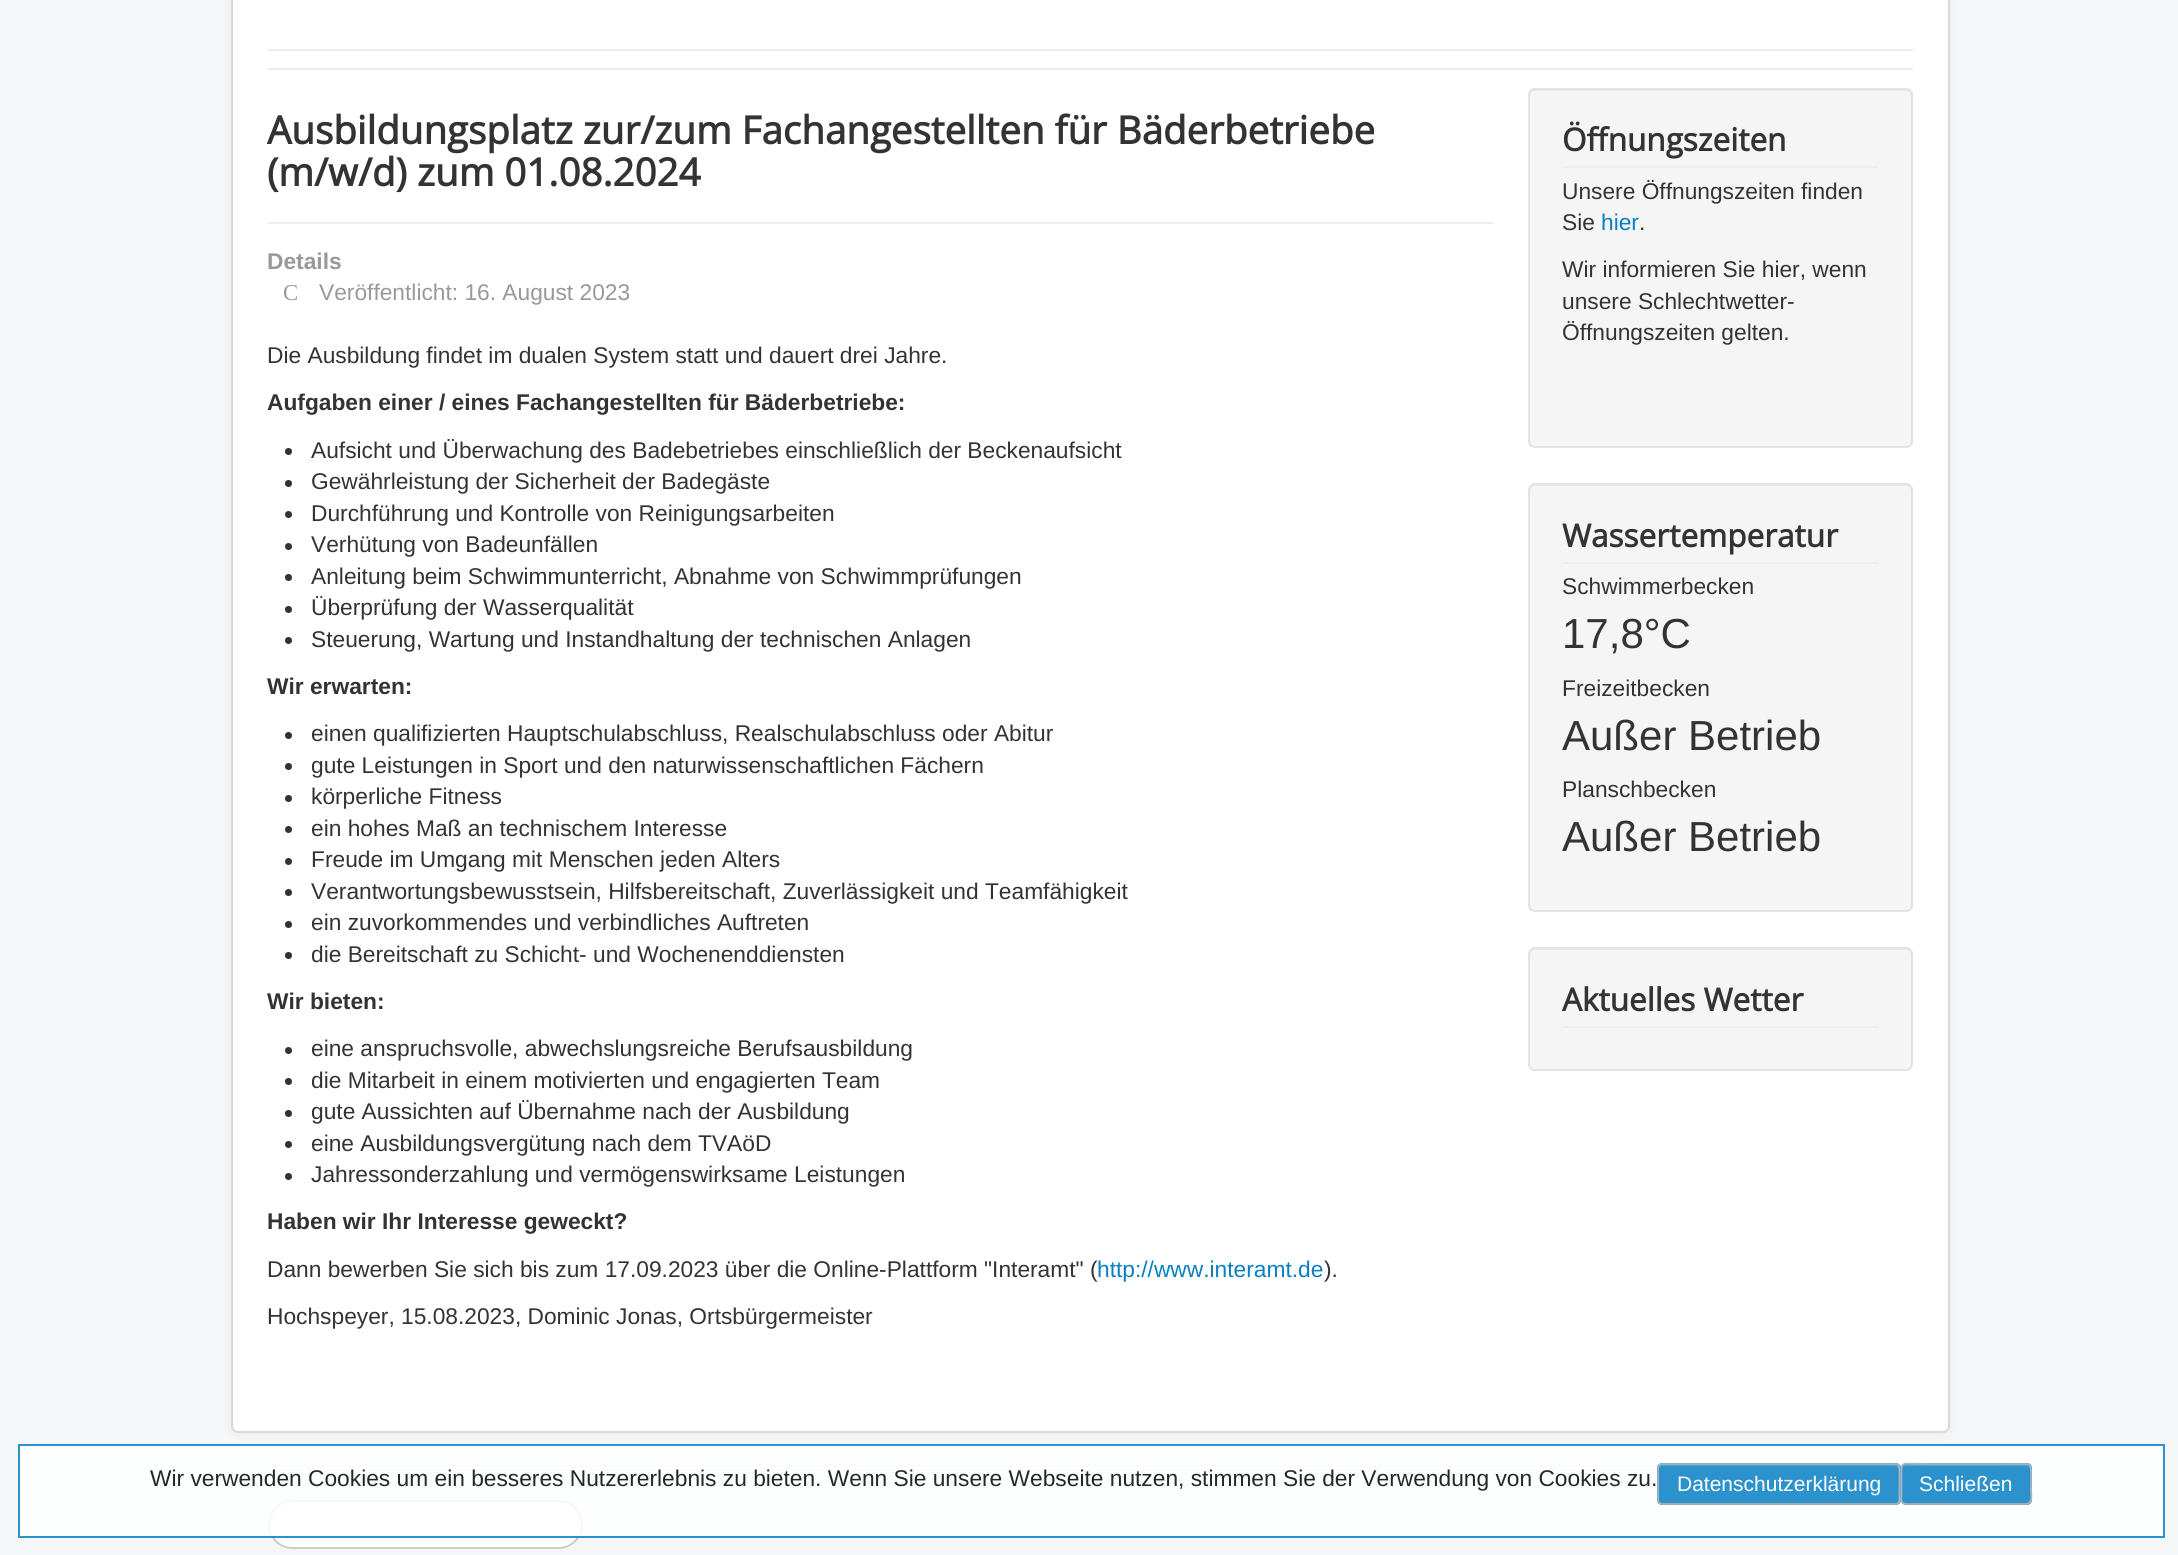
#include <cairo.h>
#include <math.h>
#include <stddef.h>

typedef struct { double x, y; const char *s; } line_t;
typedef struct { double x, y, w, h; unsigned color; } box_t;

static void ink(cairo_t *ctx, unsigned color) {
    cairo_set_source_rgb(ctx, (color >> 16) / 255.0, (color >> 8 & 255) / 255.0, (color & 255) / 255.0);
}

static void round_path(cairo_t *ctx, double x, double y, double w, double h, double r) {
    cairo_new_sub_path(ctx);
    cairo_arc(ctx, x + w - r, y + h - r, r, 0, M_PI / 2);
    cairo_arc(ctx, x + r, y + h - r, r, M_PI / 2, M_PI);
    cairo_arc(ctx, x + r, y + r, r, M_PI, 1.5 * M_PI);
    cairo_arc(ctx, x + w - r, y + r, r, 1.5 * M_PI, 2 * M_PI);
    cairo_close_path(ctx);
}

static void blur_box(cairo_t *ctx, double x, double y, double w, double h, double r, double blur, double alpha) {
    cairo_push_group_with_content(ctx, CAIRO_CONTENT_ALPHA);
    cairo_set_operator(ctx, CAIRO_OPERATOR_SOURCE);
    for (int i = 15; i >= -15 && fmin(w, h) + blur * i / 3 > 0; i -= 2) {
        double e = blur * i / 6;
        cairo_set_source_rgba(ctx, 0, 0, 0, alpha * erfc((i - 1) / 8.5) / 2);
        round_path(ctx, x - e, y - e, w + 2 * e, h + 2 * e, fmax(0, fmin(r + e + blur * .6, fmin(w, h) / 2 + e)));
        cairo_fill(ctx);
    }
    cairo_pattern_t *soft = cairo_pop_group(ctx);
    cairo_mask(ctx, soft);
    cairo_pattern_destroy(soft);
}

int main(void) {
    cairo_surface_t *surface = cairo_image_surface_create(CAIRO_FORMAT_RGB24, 2178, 1555);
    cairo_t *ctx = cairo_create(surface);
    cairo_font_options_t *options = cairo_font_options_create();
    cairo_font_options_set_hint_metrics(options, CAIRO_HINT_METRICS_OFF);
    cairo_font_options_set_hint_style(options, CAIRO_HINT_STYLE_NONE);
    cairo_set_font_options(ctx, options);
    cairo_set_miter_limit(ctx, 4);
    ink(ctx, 0xF4F6F7);
    cairo_paint(ctx);
    ink(ctx, 0x000000);
    blur_box(ctx, 231, -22, 1719, 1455, 7, 5, 0.05);
    ink(ctx, 0xFFFFFF);
    round_path(ctx, 231, -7, 1719, 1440, 7);
    cairo_fill(ctx);
    round_path(ctx, 232, -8, 1717, 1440, 6);
    cairo_set_source_rgba(ctx, 0, 0, 0, 0.15);
    cairo_stroke(ctx);
    {
        static const box_t items[] = {
            {268, 49, 1645, 2, 0xECECEC},
            {268, 68, 1645, 2, 0xECECEC},
            {268, 222, 1225, 2, 0xEEEEEE},
        };
        for (size_t i = 0; i < sizeof items / sizeof *items; i++) {
            ink(ctx, items[i].color);
            cairo_rectangle(ctx, items[i].x, items[i].y, items[i].w, items[i].h);
            cairo_fill(ctx);
        }
    }
    cairo_select_font_face(ctx, "Open Sans", CAIRO_FONT_SLANT_NORMAL, CAIRO_FONT_WEIGHT_BOLD);
    cairo_set_font_size(ctx, 38.5);
    ink(ctx, 0x333333);
    cairo_move_to(ctx, 267, 144);
    cairo_show_text(ctx, "Ausbildungsplatz zur/zum Fachangestellten für Bäderbetriebe");
    cairo_move_to(ctx, 267, 186);
    cairo_show_text(ctx, "(m/w/d) zum 01.08.2024");
    cairo_select_font_face(ctx, "Liberation Sans", CAIRO_FONT_SLANT_NORMAL, CAIRO_FONT_WEIGHT_BOLD);
    cairo_set_font_size(ctx, 22.75);
    ink(ctx, 0x999999);
    cairo_move_to(ctx, 267, 269);
    cairo_show_text(ctx, "Details");
    cairo_select_font_face(ctx, "Liberation Serif", CAIRO_FONT_SLANT_NORMAL, CAIRO_FONT_WEIGHT_NORMAL);
    cairo_move_to(ctx, 283, 300);
    cairo_show_text(ctx, "C");
    cairo_select_font_face(ctx, "Liberation Sans", CAIRO_FONT_SLANT_NORMAL, CAIRO_FONT_WEIGHT_NORMAL);
    cairo_move_to(ctx, 319, 300);
    cairo_show_text(ctx, "Veröffentlicht: 16. August 2023");
    ink(ctx, 0x333333);
    cairo_move_to(ctx, 267, 363);
    cairo_show_text(ctx, "Die Ausbildung findet im dualen System statt und dauert drei Jahre.");
    cairo_select_font_face(ctx, "Liberation Sans", CAIRO_FONT_SLANT_NORMAL, CAIRO_FONT_WEIGHT_BOLD);
    cairo_move_to(ctx, 267, 410);
    cairo_show_text(ctx, "Aufgaben einer / eines Fachangestellten für Bäderbetriebe:");
    cairo_new_path(ctx);
    cairo_arc(ctx, 288.5, 451.5, 3.5, 0, 2 * M_PI);
    cairo_fill(ctx);
    cairo_select_font_face(ctx, "Liberation Sans", CAIRO_FONT_SLANT_NORMAL, CAIRO_FONT_WEIGHT_NORMAL);
    cairo_move_to(ctx, 311, 458);
    cairo_show_text(ctx, "Aufsicht und Überwachung des Badebetriebes einschließlich der Beckenaufsicht");
    cairo_new_path(ctx);
    cairo_arc(ctx, 288.5, 483.5, 3.5, 0, 2 * M_PI);
    cairo_fill(ctx);
    cairo_move_to(ctx, 311, 489);
    cairo_show_text(ctx, "Gewährleistung der Sicherheit der Badegäste");
    cairo_new_path(ctx);
    cairo_arc(ctx, 288.5, 514.5, 3.5, 0, 2 * M_PI);
    cairo_fill(ctx);
    cairo_move_to(ctx, 311, 521);
    cairo_show_text(ctx, "Durchführung und Kontrolle von Reinigungsarbeiten");
    cairo_new_path(ctx);
    cairo_arc(ctx, 288.5, 546.5, 3.5, 0, 2 * M_PI);
    cairo_fill(ctx);
    cairo_move_to(ctx, 311, 552);
    cairo_show_text(ctx, "Verhütung von Badeunfällen");
    cairo_new_path(ctx);
    cairo_arc(ctx, 288.5, 577.5, 3.5, 0, 2 * M_PI);
    cairo_fill(ctx);
    cairo_move_to(ctx, 311, 584);
    cairo_show_text(ctx, "Anleitung beim Schwimmunterricht, Abnahme von Schwimmprüfungen");
    cairo_new_path(ctx);
    cairo_arc(ctx, 288.5, 609.5, 3.5, 0, 2 * M_PI);
    cairo_fill(ctx);
    cairo_move_to(ctx, 311, 615);
    cairo_show_text(ctx, "Überprüfung der Wasserqualität");
    cairo_new_path(ctx);
    cairo_arc(ctx, 288.5, 640.5, 3.5, 0, 2 * M_PI);
    cairo_fill(ctx);
    cairo_move_to(ctx, 311, 647);
    cairo_show_text(ctx, "Steuerung, Wartung und Instandhaltung der technischen Anlagen");
    cairo_select_font_face(ctx, "Liberation Sans", CAIRO_FONT_SLANT_NORMAL, CAIRO_FONT_WEIGHT_BOLD);
    cairo_move_to(ctx, 267, 694);
    cairo_show_text(ctx, "Wir erwarten:");
    cairo_new_path(ctx);
    cairo_arc(ctx, 288.5, 735.5, 3.5, 0, 2 * M_PI);
    cairo_fill(ctx);
    cairo_select_font_face(ctx, "Liberation Sans", CAIRO_FONT_SLANT_NORMAL, CAIRO_FONT_WEIGHT_NORMAL);
    cairo_move_to(ctx, 311, 741);
    cairo_show_text(ctx, "einen qualifizierten Hauptschulabschluss, Realschulabschluss oder Abitur");
    cairo_new_path(ctx);
    cairo_arc(ctx, 288.5, 766.5, 3.5, 0, 2 * M_PI);
    cairo_fill(ctx);
    cairo_move_to(ctx, 311, 773);
    cairo_show_text(ctx, "gute Leistungen in Sport und den naturwissenschaftlichen Fächern");
    cairo_new_path(ctx);
    cairo_arc(ctx, 288.5, 798.5, 3.5, 0, 2 * M_PI);
    cairo_fill(ctx);
    cairo_move_to(ctx, 311, 804);
    cairo_show_text(ctx, "körperliche Fitness");
    cairo_new_path(ctx);
    cairo_arc(ctx, 288.5, 829.5, 3.5, 0, 2 * M_PI);
    cairo_fill(ctx);
    cairo_move_to(ctx, 311, 836);
    cairo_show_text(ctx, "ein hohes Maß an technischem Interesse");
    cairo_new_path(ctx);
    cairo_arc(ctx, 288.5, 861.5, 3.5, 0, 2 * M_PI);
    cairo_fill(ctx);
    cairo_move_to(ctx, 311, 867);
    cairo_show_text(ctx, "Freude im Umgang mit Menschen jeden Alters");
    cairo_new_path(ctx);
    cairo_arc(ctx, 288.5, 892.5, 3.5, 0, 2 * M_PI);
    cairo_fill(ctx);
    cairo_move_to(ctx, 311, 899);
    cairo_show_text(ctx, "Verantwortungsbewusstsein, Hilfsbereitschaft, Zuverlässigkeit und Teamfähigkeit");
    cairo_new_path(ctx);
    cairo_arc(ctx, 288.5, 924.5, 3.5, 0, 2 * M_PI);
    cairo_fill(ctx);
    cairo_move_to(ctx, 311, 930);
    cairo_show_text(ctx, "ein zuvorkommendes und verbindliches Auftreten");
    cairo_new_path(ctx);
    cairo_arc(ctx, 288.5, 955.5, 3.5, 0, 2 * M_PI);
    cairo_fill(ctx);
    cairo_move_to(ctx, 311, 962);
    cairo_show_text(ctx, "die Bereitschaft zu Schicht- und Wochenenddiensten");
    cairo_select_font_face(ctx, "Liberation Sans", CAIRO_FONT_SLANT_NORMAL, CAIRO_FONT_WEIGHT_BOLD);
    cairo_move_to(ctx, 267, 1009);
    cairo_show_text(ctx, "Wir bieten:");
    cairo_new_path(ctx);
    cairo_arc(ctx, 288.5, 1050.5, 3.5, 0, 2 * M_PI);
    cairo_fill(ctx);
    cairo_select_font_face(ctx, "Liberation Sans", CAIRO_FONT_SLANT_NORMAL, CAIRO_FONT_WEIGHT_NORMAL);
    cairo_move_to(ctx, 311, 1056);
    cairo_show_text(ctx, "eine anspruchsvolle, abwechslungsreiche Berufsausbildung");
    cairo_new_path(ctx);
    cairo_arc(ctx, 288.5, 1081.5, 3.5, 0, 2 * M_PI);
    cairo_fill(ctx);
    cairo_move_to(ctx, 311, 1088);
    cairo_show_text(ctx, "die Mitarbeit in einem motivierten und engagierten Team");
    cairo_new_path(ctx);
    cairo_arc(ctx, 288.5, 1113.5, 3.5, 0, 2 * M_PI);
    cairo_fill(ctx);
    cairo_move_to(ctx, 311, 1119);
    cairo_show_text(ctx, "gute Aussichten auf Übernahme nach der Ausbildung");
    cairo_new_path(ctx);
    cairo_arc(ctx, 288.5, 1144.5, 3.5, 0, 2 * M_PI);
    cairo_fill(ctx);
    cairo_move_to(ctx, 311, 1151);
    cairo_show_text(ctx, "eine Ausbildungsvergütung nach dem TVAöD");
    cairo_new_path(ctx);
    cairo_arc(ctx, 288.5, 1176.5, 3.5, 0, 2 * M_PI);
    cairo_fill(ctx);
    cairo_move_to(ctx, 311, 1182);
    cairo_show_text(ctx, "Jahressonderzahlung und vermögenswirksame Leistungen");
    cairo_select_font_face(ctx, "Liberation Sans", CAIRO_FONT_SLANT_NORMAL, CAIRO_FONT_WEIGHT_BOLD);
    cairo_move_to(ctx, 267, 1229);
    cairo_show_text(ctx, "Haben wir Ihr Interesse geweckt?");
    cairo_select_font_face(ctx, "Liberation Sans", CAIRO_FONT_SLANT_NORMAL, CAIRO_FONT_WEIGHT_NORMAL);
    cairo_move_to(ctx, 267, 1277);
    cairo_show_text(ctx, "Dann bewerben Sie sich bis zum 17.09.2023 über die Online-Plattform \"Interamt\" (");
    ink(ctx, 0x087FC4);
    cairo_move_to(ctx, 1097, 1277);
    cairo_show_text(ctx, "http://www.interamt.de");
    ink(ctx, 0x333333);
    cairo_move_to(ctx, 1324, 1277);
    cairo_show_text(ctx, ").");
    cairo_move_to(ctx, 267, 1324);
    cairo_show_text(ctx, "Hochspeyer, 15.08.2023, Dominic Jonas, Ortsbürgermeister");
    ink(ctx, 0xF5F5F5);
    round_path(ctx, 1528, 88, 385, 360, 7);
    cairo_fill(ctx);
    ink(ctx, 0xE9E9E9);
    cairo_new_path(ctx);
    cairo_move_to(ctx, 1535, 91);
    cairo_line_to(ctx, 1906, 91);
    cairo_curve_to(ctx, 1909, 91, 1911, 93, 1911, 96);
    cairo_line_to(ctx, 1911, 94);
    cairo_curve_to(ctx, 1911, 91, 1909, 89, 1906, 89);
    cairo_line_to(ctx, 1535, 89);
    cairo_curve_to(ctx, 1532, 89, 1530, 91, 1530, 94);
    cairo_line_to(ctx, 1530, 96);
    cairo_curve_to(ctx, 1530, 93, 1532, 91, 1535, 91);
    cairo_close_path(ctx);
    cairo_fill(ctx);
    round_path(ctx, 1529, 89, 383, 358, 6);
    ink(ctx, 0xE3E3E3);
    cairo_stroke(ctx);
    ink(ctx, 0xEEEEEE);
    cairo_rectangle(ctx, 1563, 166, 315, 2);
    cairo_fill(ctx);
    cairo_select_font_face(ctx, "Open Sans", CAIRO_FONT_SLANT_NORMAL, CAIRO_FONT_WEIGHT_BOLD);
    cairo_set_font_size(ctx, 31.5);
    ink(ctx, 0x333333);
    cairo_move_to(ctx, 1562, 151);
    cairo_show_text(ctx, "Öffnungszeiten");
    cairo_select_font_face(ctx, "Liberation Sans", CAIRO_FONT_SLANT_NORMAL, CAIRO_FONT_WEIGHT_NORMAL);
    cairo_set_font_size(ctx, 22.75);
    cairo_move_to(ctx, 1562, 199);
    cairo_show_text(ctx, "Unsere Öffnungszeiten finden");
    cairo_move_to(ctx, 1562, 230);
    cairo_show_text(ctx, "Sie");
    ink(ctx, 0x087FC4);
    cairo_move_to(ctx, 1601, 230);
    cairo_show_text(ctx, "hier");
    ink(ctx, 0x333333);
    {
        static const line_t items[] = {
            {1639, 230, "."},
            {1562, 277, "Wir informieren Sie hier, wenn"},
            {1562, 309, "unsere Schlechtwetter-"},
            {1562, 340, "Öffnungszeiten gelten."},
        };
        for (size_t i = 0; i < sizeof items / sizeof *items; i++) {
            cairo_move_to(ctx, items[i].x, items[i].y);
            cairo_show_text(ctx, items[i].s);
        }
    }
    ink(ctx, 0xF5F5F5);
    round_path(ctx, 1528, 483, 385, 429, 7);
    cairo_fill(ctx);
    ink(ctx, 0xE9E9E9);
    cairo_new_path(ctx);
    cairo_move_to(ctx, 1535, 486);
    cairo_line_to(ctx, 1906, 486);
    cairo_curve_to(ctx, 1909, 486, 1911, 489, 1911, 492);
    cairo_line_to(ctx, 1911, 490);
    cairo_curve_to(ctx, 1911, 487, 1909, 485, 1906, 485);
    cairo_line_to(ctx, 1535, 485);
    cairo_curve_to(ctx, 1532, 485, 1530, 487, 1530, 490);
    cairo_line_to(ctx, 1530, 492);
    cairo_curve_to(ctx, 1530, 489, 1532, 486, 1535, 486);
    cairo_close_path(ctx);
    cairo_fill(ctx);
    round_path(ctx, 1529, 484, 383, 427, 6);
    ink(ctx, 0xE3E3E3);
    cairo_stroke(ctx);
    ink(ctx, 0xEEEEEE);
    cairo_rectangle(ctx, 1563, 562, 315, 2);
    cairo_fill(ctx);
    cairo_select_font_face(ctx, "Open Sans", CAIRO_FONT_SLANT_NORMAL, CAIRO_FONT_WEIGHT_BOLD);
    cairo_set_font_size(ctx, 31.5);
    ink(ctx, 0x333333);
    cairo_move_to(ctx, 1562, 547);
    cairo_show_text(ctx, "Wassertemperatur");
    cairo_select_font_face(ctx, "Liberation Sans", CAIRO_FONT_SLANT_NORMAL, CAIRO_FONT_WEIGHT_NORMAL);
    cairo_set_font_size(ctx, 22.75);
    cairo_move_to(ctx, 1562, 594);
    cairo_show_text(ctx, "Schwimmerbecken");
    cairo_set_font_size(ctx, 42);
    cairo_move_to(ctx, 1562, 648);
    cairo_show_text(ctx, "17,8°C");
    cairo_set_font_size(ctx, 22.75);
    cairo_move_to(ctx, 1562, 696);
    cairo_show_text(ctx, "Freizeitbecken");
    cairo_set_font_size(ctx, 42);
    cairo_move_to(ctx, 1562, 750);
    cairo_show_text(ctx, "Außer Betrieb");
    cairo_set_font_size(ctx, 22.75);
    cairo_move_to(ctx, 1562, 797);
    cairo_show_text(ctx, "Planschbecken");
    cairo_set_font_size(ctx, 42);
    cairo_move_to(ctx, 1562, 851);
    cairo_show_text(ctx, "Außer Betrieb");
    ink(ctx, 0xF5F5F5);
    round_path(ctx, 1528, 947, 385, 124, 7);
    cairo_fill(ctx);
    ink(ctx, 0xE9E9E9);
    cairo_new_path(ctx);
    cairo_move_to(ctx, 1535, 950);
    cairo_line_to(ctx, 1906, 950);
    cairo_curve_to(ctx, 1909, 950, 1911, 953, 1911, 956);
    cairo_line_to(ctx, 1911, 954);
    cairo_curve_to(ctx, 1911, 951, 1909, 949, 1906, 949);
    cairo_line_to(ctx, 1535, 949);
    cairo_curve_to(ctx, 1532, 949, 1530, 951, 1530, 954);
    cairo_line_to(ctx, 1530, 956);
    cairo_curve_to(ctx, 1530, 953, 1532, 950, 1535, 950);
    cairo_close_path(ctx);
    cairo_fill(ctx);
    round_path(ctx, 1529, 948, 383, 122, 6);
    ink(ctx, 0xE3E3E3);
    cairo_stroke(ctx);
    ink(ctx, 0xEEEEEE);
    cairo_rectangle(ctx, 1563, 1026, 315, 2);
    cairo_fill(ctx);
    cairo_select_font_face(ctx, "Open Sans", CAIRO_FONT_SLANT_NORMAL, CAIRO_FONT_WEIGHT_BOLD);
    cairo_set_font_size(ctx, 31.5);
    ink(ctx, 0x333333);
    cairo_move_to(ctx, 1562, 1011);
    cairo_show_text(ctx, "Aktuelles Wetter");
    ink(ctx, 0xEEEEEE);
    cairo_rectangle(ctx, 268, 1465, 1645, 2);
    cairo_fill(ctx);
    ink(ctx, 0xFFFFFF);
    cairo_rectangle(ctx, 268, 1467, 1645, 2);
    cairo_fill(ctx);
    round_path(ctx, 268, 1500, 315, 49, 24.5);
    cairo_fill(ctx);
    ink(ctx, 0xECECEC);
    cairo_new_path(ctx);
    cairo_move_to(ctx, 292, 1503);
    cairo_line_to(ctx, 558, 1503);
    cairo_curve_to(ctx, 571, 1503, 581, 1513, 581, 1525);
    cairo_curve_to(ctx, 582, 1492, 530, 1502, 514, 1502);
    cairo_line_to(ctx, 337, 1502);
    cairo_curve_to(ctx, 321, 1502, 269, 1492, 270, 1525);
    cairo_curve_to(ctx, 270, 1513, 280, 1503, 292, 1503);
    cairo_close_path(ctx);
    cairo_fill(ctx);
    round_path(ctx, 269, 1501, 313, 47, 23.5);
    ink(ctx, 0xCCCCCC);
    cairo_stroke(ctx);
    cairo_set_source_rgba(ctx, 1, 1, 1, 0.85);
    cairo_rectangle(ctx, 18, 1444, 2147, 94);
    cairo_fill(ctx);
    cairo_rectangle(ctx, 19, 1445, 2145, 92);
    cairo_set_source_rgba(ctx, 0.031, 0.498, 0.769, 0.85);
    cairo_stroke(ctx);
    cairo_select_font_face(ctx, "Liberation Sans", CAIRO_FONT_SLANT_NORMAL, CAIRO_FONT_WEIGHT_NORMAL);
    cairo_set_font_size(ctx, 22.75);
    ink(ctx, 0x272728);
    cairo_move_to(ctx, 150, 1486);
    cairo_show_text(ctx, "Wir verwenden Cookies um ein besseres Nutzererlebnis zu bieten. Wenn Sie unsere Webseite nutzen, stimmen Sie der Verwendung von Cookies zu.");
    cairo_set_source_rgba(ctx, 0.031, 0.498, 0.769, 0.85);
    round_path(ctx, 1657, 1463, 244, 42, 5);
    cairo_fill(ctx);
    ink(ctx, 0x50A4D5);
    cairo_new_path(ctx);
    cairo_move_to(ctx, 1662, 1466);
    cairo_line_to(ctx, 1895, 1466);
    cairo_curve_to(ctx, 1897, 1466, 1899, 1468, 1899, 1470);
    cairo_curve_to(ctx, 1899, 1467, 1898, 1465, 1895, 1465);
    cairo_line_to(ctx, 1663, 1465);
    cairo_curve_to(ctx, 1660, 1465, 1659, 1467, 1659, 1470);
    cairo_curve_to(ctx, 1659, 1468, 1661, 1466, 1662, 1466);
    cairo_close_path(ctx);
    cairo_fill(ctx);
    cairo_new_path(ctx);
    cairo_move_to(ctx, 1898.5, 1503);
    cairo_curve_to(ctx, 1897.5, 1503.5, 1896.5, 1504, 1895, 1504);
    cairo_line_to(ctx, 1662.5, 1504);
    cairo_curve_to(ctx, 1661.5, 1504, 1660, 1503.5, 1659.5, 1503);
    ink(ctx, 0xAEAFAF);
    cairo_set_line_width(ctx, 1.8);
    cairo_stroke(ctx);
    cairo_new_path(ctx);
    cairo_move_to(ctx, 1659.5, 1503);
    cairo_curve_to(ctx, 1658.5, 1502, 1658, 1501, 1658, 1500);
    cairo_line_to(ctx, 1658, 1468);
    cairo_curve_to(ctx, 1658, 1467, 1658.5, 1466, 1659.5, 1465);
    cairo_curve_to(ctx, 1660, 1464.5, 1661.5, 1464, 1662.5, 1464);
    cairo_line_to(ctx, 1895, 1464);
    cairo_curve_to(ctx, 1896.5, 1464, 1897.5, 1464.5, 1898.5, 1465);
    cairo_curve_to(ctx, 1899, 1466, 1899.5, 1467, 1899.5, 1468);
    cairo_line_to(ctx, 1899.5, 1500);
    cairo_curve_to(ctx, 1899.5, 1501, 1899, 1502, 1898.5, 1503);
    cairo_set_source_rgba(ctx, 0.733, 0.733, 0.733, 0.85);
    cairo_stroke(ctx);
    cairo_set_font_size(ctx, 21);
    ink(ctx, 0xFDFEFE);
    cairo_move_to(ctx, 1677, 1491);
    cairo_show_text(ctx, "Datenschutzerklärung");
    cairo_set_source_rgba(ctx, 0.031, 0.498, 0.769, 0.85);
    round_path(ctx, 1901, 1463, 131, 42, 5);
    cairo_fill(ctx);
    ink(ctx, 0x51A5D5);
    cairo_new_path(ctx);
    cairo_move_to(ctx, 1906, 1466);
    cairo_line_to(ctx, 2026, 1466);
    cairo_curve_to(ctx, 2028, 1466, 2030, 1468, 2030, 1470);
    cairo_curve_to(ctx, 2030, 1460, 2008, 1465, 2006, 1465);
    cairo_line_to(ctx, 1926, 1465);
    cairo_curve_to(ctx, 1924, 1465, 1902, 1460, 1902, 1470);
    cairo_curve_to(ctx, 1902, 1468, 1904, 1466, 1906, 1466);
    cairo_close_path(ctx);
    cairo_fill(ctx);
    cairo_new_path(ctx);
    cairo_move_to(ctx, 2029.5, 1503);
    cairo_line_to(ctx, 2026.5, 1504);
    cairo_line_to(ctx, 1905.5, 1504);
    cairo_line_to(ctx, 1902.5, 1503);
    ink(ctx, 0xAEAFAF);
    cairo_stroke(ctx);
    cairo_new_path(ctx);
    cairo_move_to(ctx, 1902.5, 1503);
    cairo_curve_to(ctx, 1900.5, 1501, 1901.5, 1497, 1901.5, 1494.5);
    cairo_line_to(ctx, 1901.5, 1484);
    cairo_curve_to(ctx, 1901.5, 1459, 1898, 1464, 1926, 1464);
    cairo_line_to(ctx, 2026.5, 1464);
    cairo_curve_to(ctx, 2031.5, 1464, 2031, 1470, 2031, 1473.5);
    cairo_line_to(ctx, 2031, 1489);
    cairo_curve_to(ctx, 2031, 1492.5, 2032.5, 1500, 2029.5, 1503);
    cairo_set_source_rgba(ctx, 0.733, 0.733, 0.733, 0.85);
    cairo_stroke(ctx);
    ink(ctx, 0xFDFEFE);
    cairo_move_to(ctx, 1919, 1491);
    cairo_show_text(ctx, "Schließen");
    cairo_surface_write_to_png(surface, "image.png");
    cairo_font_options_destroy(options);
    cairo_destroy(ctx);
    cairo_surface_destroy(surface);
    return 0;
}
